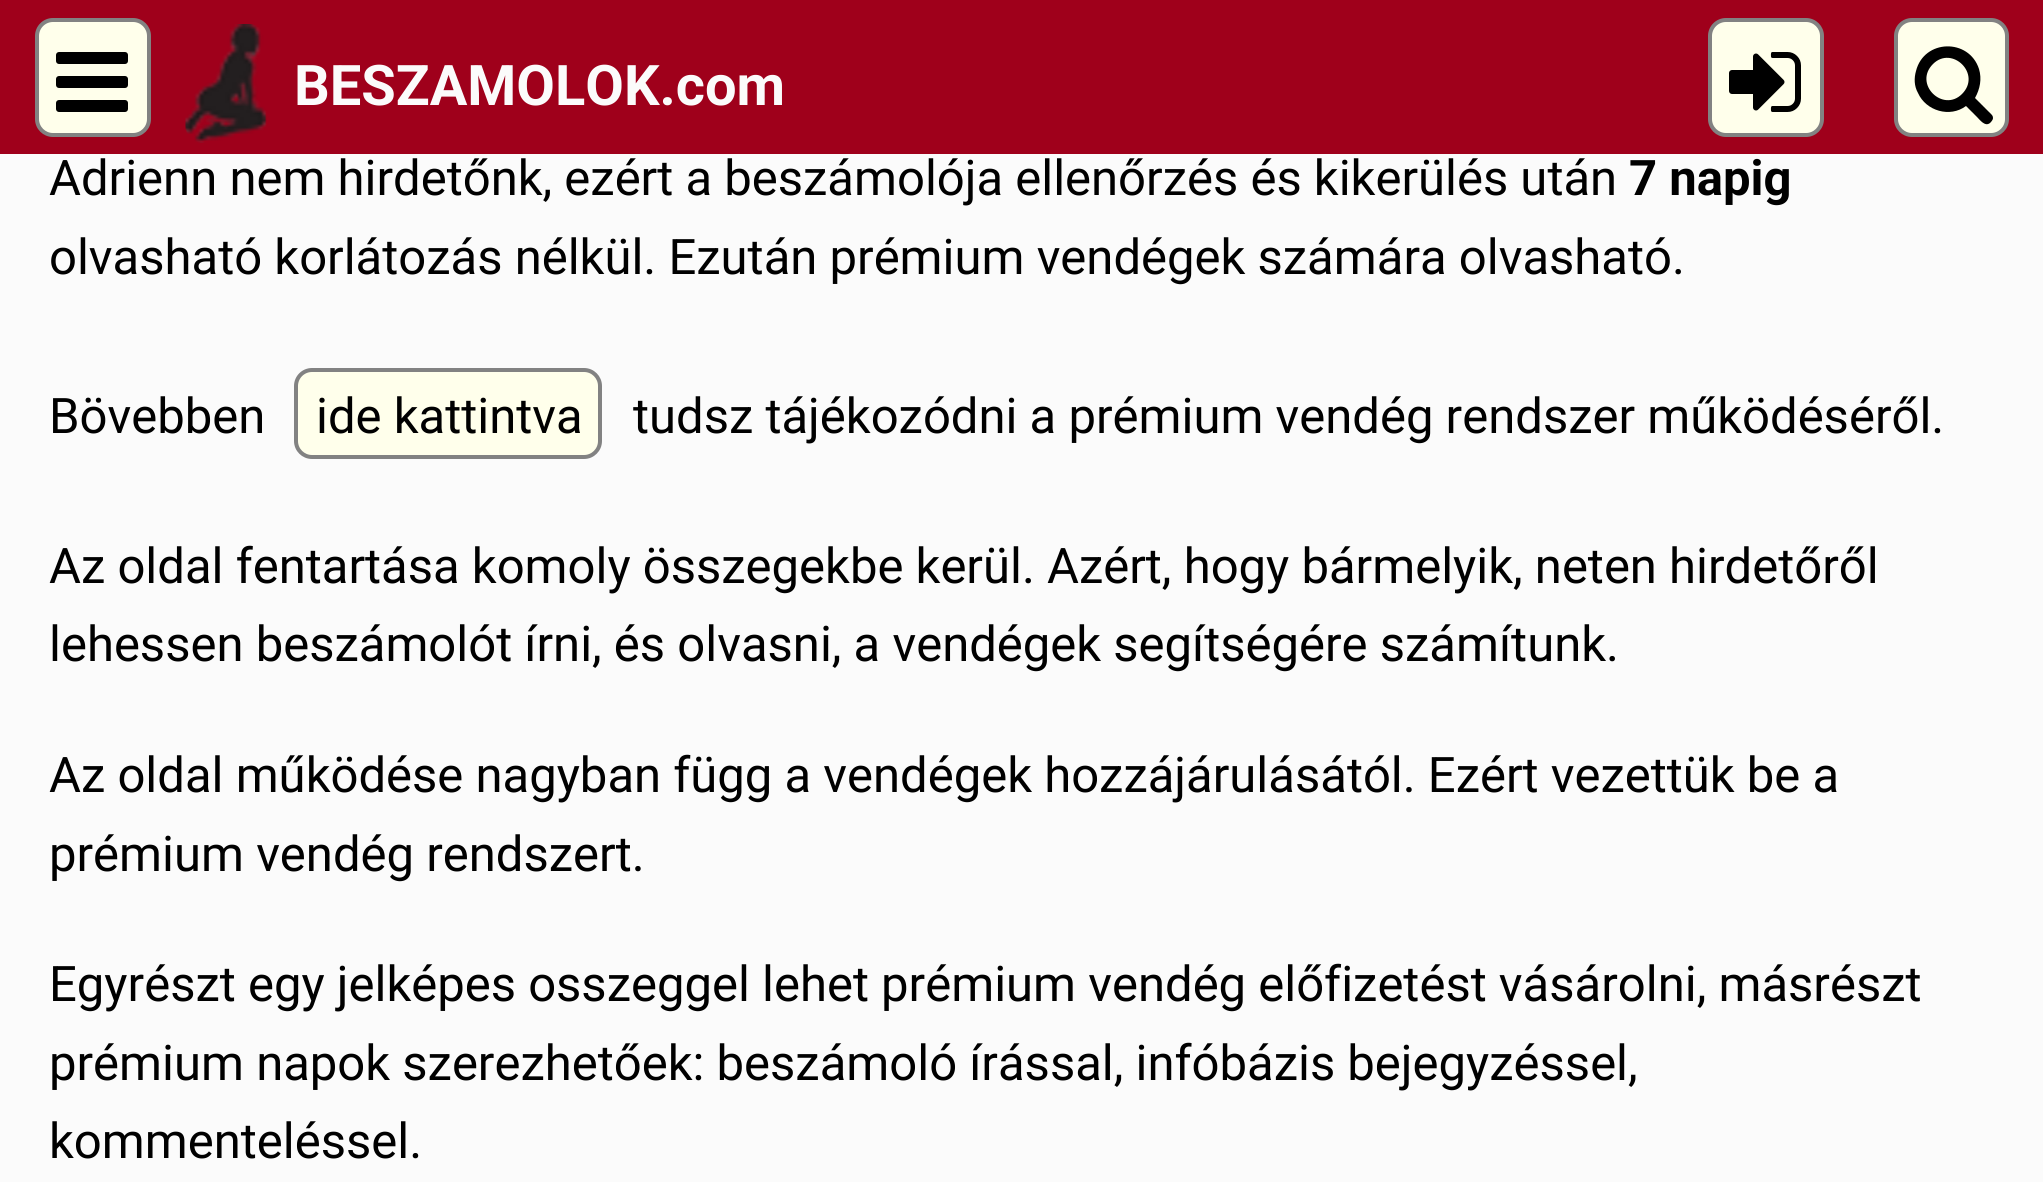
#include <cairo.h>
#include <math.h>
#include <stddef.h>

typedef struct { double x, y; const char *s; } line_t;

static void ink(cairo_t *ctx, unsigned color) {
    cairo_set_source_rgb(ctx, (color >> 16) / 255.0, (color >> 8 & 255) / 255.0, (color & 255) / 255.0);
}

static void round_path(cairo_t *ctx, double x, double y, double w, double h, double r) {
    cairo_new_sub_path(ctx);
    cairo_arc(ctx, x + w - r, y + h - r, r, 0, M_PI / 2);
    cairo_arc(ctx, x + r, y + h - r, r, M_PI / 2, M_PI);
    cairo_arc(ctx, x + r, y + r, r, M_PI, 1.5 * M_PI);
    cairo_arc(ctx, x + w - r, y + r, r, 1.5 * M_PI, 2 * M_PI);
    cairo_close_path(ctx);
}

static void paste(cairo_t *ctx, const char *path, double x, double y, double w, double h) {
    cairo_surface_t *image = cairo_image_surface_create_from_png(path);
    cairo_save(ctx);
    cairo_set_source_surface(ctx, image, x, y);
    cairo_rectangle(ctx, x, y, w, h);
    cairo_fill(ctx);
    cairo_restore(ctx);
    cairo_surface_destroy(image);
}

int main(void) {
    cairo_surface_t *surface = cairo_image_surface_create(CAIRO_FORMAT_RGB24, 2043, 1182);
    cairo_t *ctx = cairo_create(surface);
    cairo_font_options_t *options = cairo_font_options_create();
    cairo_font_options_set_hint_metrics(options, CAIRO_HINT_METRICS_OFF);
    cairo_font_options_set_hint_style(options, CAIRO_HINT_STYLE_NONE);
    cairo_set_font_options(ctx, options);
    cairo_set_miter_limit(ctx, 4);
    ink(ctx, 0xFBFBFB);
    cairo_paint(ctx);
    ink(ctx, 0x9F001B);
    cairo_rectangle(ctx, 0, 0, 2043, 154);
    cairo_fill(ctx);
    ink(ctx, 0xFFFFEB);
    round_path(ctx, 37, 20, 112, 115, 16);
    cairo_fill_preserve(ctx);
    ink(ctx, 0x828282);
    cairo_set_line_width(ctx, 4);
    cairo_stroke(ctx);
    paste(ctx, "media/1.png", 56, 52, 72, 60);
    paste(ctx, "media/2.png", 185, 24, 82, 119);
    cairo_select_font_face(ctx, "Roboto", CAIRO_FONT_SLANT_NORMAL, CAIRO_FONT_WEIGHT_BOLD);
    cairo_set_font_size(ctx, 56);
    ink(ctx, 0xFBFBFB);
    cairo_move_to(ctx, 294, 105);
    cairo_show_text(ctx, "BESZAMOLOK.com");
    ink(ctx, 0xFFFFEB);
    round_path(ctx, 1710, 20, 112, 115, 16);
    cairo_fill_preserve(ctx);
    ink(ctx, 0x828282);
    cairo_stroke(ctx);
    paste(ctx, "media/3.png", 1729, 52, 72, 60);
    ink(ctx, 0xFFFFEB);
    round_path(ctx, 1896, 20, 111, 115, 16);
    cairo_fill_preserve(ctx);
    ink(ctx, 0x828282);
    cairo_stroke(ctx);
    ink(ctx, 0x000000);
    cairo_new_path(ctx);
    cairo_move_to(ctx, 1962, 94);
    cairo_curve_to(ctx, 1982, 74, 1952, 45, 1933, 64);
    cairo_curve_to(ctx, 1913, 84, 1943, 113, 1962, 94);
    cairo_close_path(ctx);
    cairo_move_to(ctx, 1993, 118);
    cairo_curve_to(ctx, 1993, 120, 1991, 122, 1990, 123);
    cairo_curve_to(ctx, 1985, 127, 1980, 120, 1977, 117);
    cairo_line_to(ctx, 1966, 106);
    cairo_curve_to(ctx, 1950, 118, 1926, 111, 1918, 93);
    cairo_curve_to(ctx, 1914, 86, 1914, 78, 1916, 71);
    cairo_curve_to(ctx, 1924, 39, 1969, 38, 1979, 69);
    cairo_curve_to(ctx, 1982, 79, 1980, 89, 1975, 98);
    cairo_line_to(ctx, 1991, 114);
    cairo_curve_to(ctx, 1992, 115, 1993, 116, 1993, 118);
    cairo_close_path(ctx);
    cairo_fill(ctx);
    cairo_select_font_face(ctx, "Roboto", CAIRO_FONT_SLANT_NORMAL, CAIRO_FONT_WEIGHT_NORMAL);
    cairo_set_font_size(ctx, 49);
    cairo_move_to(ctx, 49, 195);
    cairo_show_text(ctx, "Adrienn nem hirdetőnk, ezért a beszámolója ellenőrzés és kikerülés után");
    cairo_select_font_face(ctx, "Roboto", CAIRO_FONT_SLANT_NORMAL, CAIRO_FONT_WEIGHT_BOLD);
    cairo_move_to(ctx, 1629, 195);
    cairo_show_text(ctx, "7 napig");
    cairo_select_font_face(ctx, "Roboto", CAIRO_FONT_SLANT_NORMAL, CAIRO_FONT_WEIGHT_NORMAL);
    cairo_move_to(ctx, 49, 274);
    cairo_show_text(ctx, "olvasható korlátozás nélkül. Ezután prémium vendégek számára olvasható.");
    cairo_move_to(ctx, 49, 433);
    cairo_show_text(ctx, "Bövebben");
    ink(ctx, 0xFFFFEB);
    round_path(ctx, 296, 370, 304, 87, 16);
    cairo_fill_preserve(ctx);
    ink(ctx, 0x828282);
    cairo_stroke(ctx);
    ink(ctx, 0x000000);
    {
        static const line_t items[] = {
            {316, 433, "ide kattintva"},
            {633, 433, "tudsz tájékozódni a prémium vendég rendszer működéséről."},
            {49, 583, "Az oldal fentartása komoly összegekbe kerül. Azért, hogy bármelyik, neten hirdetőről"},
            {49, 661, "lehessen beszámolót írni, és olvasni, a vendégek segítségére számítunk."},
            {49, 792, "Az oldal működése nagyban függ a vendégek hozzájárulásától. Ezért vezettük be a"},
            {49, 871, "prémium vendég rendszert."},
            {49, 1001, "Egyrészt egy jelképes osszeggel lehet prémium vendég előfizetést vásárolni, másrészt"},
            {49, 1080, "prémium napok szerezhetőek: beszámoló írással, infóbázis bejegyzéssel,"},
            {49, 1158, "kommenteléssel."},
        };
        for (size_t i = 0; i < sizeof items / sizeof *items; i++) {
            cairo_move_to(ctx, items[i].x, items[i].y);
            cairo_show_text(ctx, items[i].s);
        }
    }
    cairo_surface_write_to_png(surface, "image.png");
    cairo_font_options_destroy(options);
    cairo_destroy(ctx);
    cairo_surface_destroy(surface);
    return 0;
}
